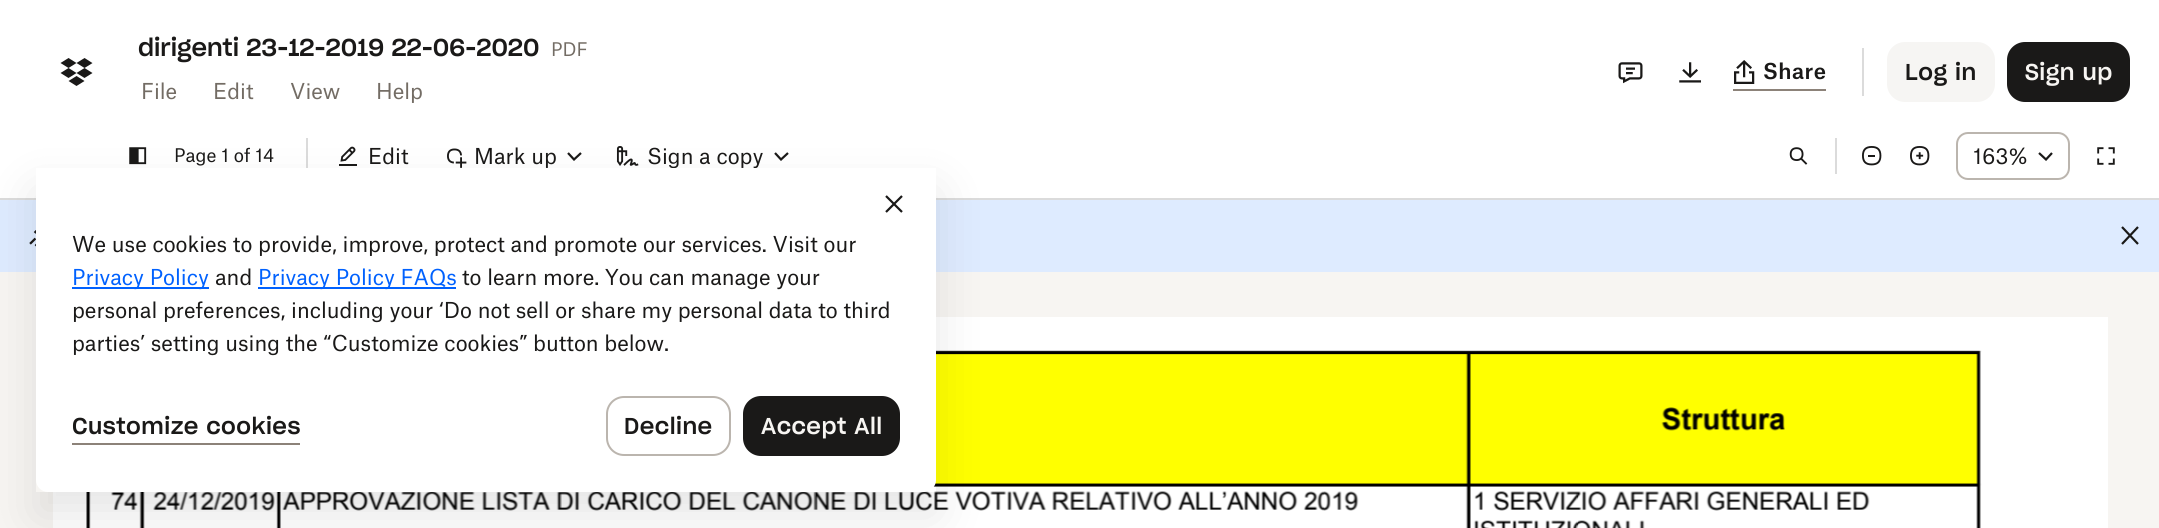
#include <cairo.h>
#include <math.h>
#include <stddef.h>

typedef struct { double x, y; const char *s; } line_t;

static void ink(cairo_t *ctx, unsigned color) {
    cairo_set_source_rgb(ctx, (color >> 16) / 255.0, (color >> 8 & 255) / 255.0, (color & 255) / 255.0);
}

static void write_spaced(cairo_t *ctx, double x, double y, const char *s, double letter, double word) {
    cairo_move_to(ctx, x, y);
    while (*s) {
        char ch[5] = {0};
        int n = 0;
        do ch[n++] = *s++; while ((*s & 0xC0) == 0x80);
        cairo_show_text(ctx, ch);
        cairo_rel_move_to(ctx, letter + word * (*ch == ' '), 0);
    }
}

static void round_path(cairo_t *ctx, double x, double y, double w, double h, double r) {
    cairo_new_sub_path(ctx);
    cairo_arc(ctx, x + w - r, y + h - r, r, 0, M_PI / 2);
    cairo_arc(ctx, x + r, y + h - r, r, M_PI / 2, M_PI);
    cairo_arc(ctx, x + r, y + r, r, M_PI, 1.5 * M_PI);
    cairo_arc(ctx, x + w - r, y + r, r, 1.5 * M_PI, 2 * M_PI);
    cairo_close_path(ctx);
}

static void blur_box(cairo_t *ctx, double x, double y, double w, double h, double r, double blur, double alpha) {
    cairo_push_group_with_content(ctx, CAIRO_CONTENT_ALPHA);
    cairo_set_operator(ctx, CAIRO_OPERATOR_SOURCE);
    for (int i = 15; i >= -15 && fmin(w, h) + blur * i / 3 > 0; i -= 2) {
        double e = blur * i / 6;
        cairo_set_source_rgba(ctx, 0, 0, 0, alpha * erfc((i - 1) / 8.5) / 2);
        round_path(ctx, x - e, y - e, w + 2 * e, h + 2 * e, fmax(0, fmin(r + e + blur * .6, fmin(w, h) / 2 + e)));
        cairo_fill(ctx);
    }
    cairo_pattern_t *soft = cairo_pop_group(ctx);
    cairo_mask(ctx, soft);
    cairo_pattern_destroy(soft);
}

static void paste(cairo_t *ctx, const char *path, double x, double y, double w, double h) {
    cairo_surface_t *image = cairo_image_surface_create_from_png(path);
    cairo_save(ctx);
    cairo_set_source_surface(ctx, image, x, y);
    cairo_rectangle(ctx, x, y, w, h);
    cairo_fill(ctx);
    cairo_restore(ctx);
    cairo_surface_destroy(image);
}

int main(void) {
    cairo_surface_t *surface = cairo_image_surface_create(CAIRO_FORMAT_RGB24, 2159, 528);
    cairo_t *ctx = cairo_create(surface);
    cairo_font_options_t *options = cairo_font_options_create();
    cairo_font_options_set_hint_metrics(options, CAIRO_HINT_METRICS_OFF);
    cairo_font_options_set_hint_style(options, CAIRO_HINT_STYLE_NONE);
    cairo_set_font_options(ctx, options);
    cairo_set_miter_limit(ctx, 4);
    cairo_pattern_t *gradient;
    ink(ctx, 0xFFFFFF);
    cairo_paint(ctx);
    ink(ctx, 0xDBDBDB);
    cairo_rectangle(ctx, 0, 198, 2159, 2);
    cairo_fill(ctx);
    paste(ctx, "media/1.png", 60, 58, 33, 28);
    cairo_select_font_face(ctx, "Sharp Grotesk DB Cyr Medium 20 Medium", CAIRO_FONT_SLANT_NORMAL, CAIRO_FONT_WEIGHT_NORMAL);
    cairo_set_font_size(ctx, 24);
    ink(ctx, 0x1A1918);
    cairo_move_to(ctx, 138, 56);
    cairo_show_text(ctx, "dirigenti 23-12-2019 22-06-2020");
    cairo_select_font_face(ctx, "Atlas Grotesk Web", CAIRO_FONT_SLANT_NORMAL, CAIRO_FONT_WEIGHT_NORMAL);
    cairo_set_font_size(ctx, 18);
    ink(ctx, 0x736C64);
    cairo_move_to(ctx, 551, 56);
    cairo_show_text(ctx, "PDF");
    cairo_set_font_size(ctx, 21);
    {
        static const line_t items[] = {
            {141, 99, "File"},
            {213, 99, "Edit"},
            {290, 99, "View"},
            {376, 99, "Help"},
        };
        for (size_t i = 0; i < sizeof items / sizeof *items; i++) {
            cairo_move_to(ctx, items[i].x, items[i].y);
            cairo_show_text(ctx, items[i].s);
        }
    }
    paste(ctx, "media/2.png", 1618, 62, 25, 22);
    paste(ctx, "media/3.png", 1679, 62, 22, 21);
    ink(ctx, 0x8C8279);
    cairo_rectangle(ctx, 1733, 89, 93, 2);
    cairo_fill(ctx);
    paste(ctx, "media/4.png", 1734, 60, 21, 24);
    cairo_select_font_face(ctx, "Atlas Grotesk Web Medium", CAIRO_FONT_SLANT_NORMAL, CAIRO_FONT_WEIGHT_NORMAL);
    ink(ctx, 0x1A1918);
    write_spaced(ctx, 1763, 79, "Share", 0.5, 0);
    ink(ctx, 0xDBDBDB);
    cairo_rectangle(ctx, 1862, 48, 2, 48);
    cairo_fill(ctx);
    ink(ctx, 0xF6F5F3);
    round_path(ctx, 1887, 42, 108, 60, 18);
    cairo_fill(ctx);
    cairo_select_font_face(ctx, "Sharp Grotesk DB Cyr Medium 20 Medium", CAIRO_FONT_SLANT_NORMAL, CAIRO_FONT_WEIGHT_NORMAL);
    cairo_set_font_size(ctx, 22.5);
    ink(ctx, 0x1A1918);
    write_spaced(ctx, 1905, 80, "Log in", 0.5, 0);
    round_path(ctx, 2007, 42, 123, 60, 18);
    cairo_fill(ctx);
    ink(ctx, 0xF7F5F2);
    write_spaced(ctx, 2025, 80, "Sign up", 0.5, 0);
    paste(ctx, "media/5.png", 129, 147, 18, 18);
    cairo_select_font_face(ctx, "Atlas Grotesk Web", CAIRO_FONT_SLANT_NORMAL, CAIRO_FONT_WEIGHT_NORMAL);
    cairo_set_font_size(ctx, 18);
    ink(ctx, 0x1A1918);
    cairo_move_to(ctx, 174, 162);
    cairo_show_text(ctx, "Page 1 of 14");
    ink(ctx, 0xDBDBDB);
    cairo_rectangle(ctx, 306, 138, 2, 36);
    cairo_fill(ctx);
    paste(ctx, "media/6.png", 339, 146, 18, 20);
    cairo_set_font_size(ctx, 21);
    ink(ctx, 0x1A1918);
    cairo_move_to(ctx, 368, 164);
    cairo_show_text(ctx, "Edit");
    paste(ctx, "media/7.png", 447, 148, 20, 20);
    cairo_move_to(ctx, 474, 164);
    cairo_show_text(ctx, "Mark up");
    cairo_new_path(ctx);
    cairo_move_to(ctx, 568, 153);
    cairo_line_to(ctx, 574, 159.5);
    cairo_line_to(ctx, 581, 153);
    cairo_set_line_width(ctx, 2.2);
    cairo_stroke(ctx);
    paste(ctx, "media/8.png", 616, 146, 23, 20);
    cairo_move_to(ctx, 647, 164);
    cairo_show_text(ctx, "Sign a copy");
    cairo_new_path(ctx);
    cairo_move_to(ctx, 775, 153);
    cairo_line_to(ctx, 781, 159.5);
    cairo_line_to(ctx, 788, 153);
    cairo_stroke(ctx);
    paste(ctx, "media/9.png", 1789, 147, 19, 18);
    ink(ctx, 0xDBDBDB);
    cairo_rectangle(ctx, 1835, 138, 2, 36);
    cairo_fill(ctx);
    paste(ctx, "media/10.png", 1862, 146, 20, 20);
    paste(ctx, "media/11.png", 1910, 146, 20, 20);
    round_path(ctx, 1957, 133, 112, 46, 11);
    ink(ctx, 0xBBB5AE);
    cairo_set_line_width(ctx, 2);
    cairo_stroke(ctx);
    ink(ctx, 0x1A1918);
    cairo_move_to(ctx, 1973, 164);
    cairo_show_text(ctx, "163%");
    cairo_new_path(ctx);
    cairo_move_to(ctx, 2039, 153);
    cairo_line_to(ctx, 2046, 159.5);
    cairo_line_to(ctx, 2052, 153);
    cairo_set_line_width(ctx, 2.2);
    cairo_stroke(ctx);
    paste(ctx, "media/12.png", 2097, 147, 18, 18);
    ink(ctx, 0xF7F5F2);
    cairo_rectangle(ctx, 0, 272, 2159, 256);
    cairo_fill(ctx);
    gradient = cairo_pattern_create_linear(0, 272, 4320, 271);
    cairo_pattern_add_color_stop_rgba(gradient, 0, 0.871, 0.922, 1, 1);
    cairo_pattern_add_color_stop_rgba(gradient, 0.5, 0.871, 0.922, 1, 1);
    cairo_pattern_add_color_stop_rgba(gradient, 0.73, 0.706, 0.82, 1, 1);
    cairo_pattern_add_color_stop_rgba(gradient, 0.94, 0.871, 0.922, 1, 1);
    cairo_set_source(ctx, gradient);
    cairo_pattern_destroy(gradient);
    cairo_rectangle(ctx, 0, 200, 2159, 72);
    cairo_fill(ctx);
    paste(ctx, "media/13.png", 29, 230, 7, 17);
    cairo_new_path(ctx);
    cairo_move_to(ctx, 2138, 227);
    cairo_line_to(ctx, 2122, 244);
    cairo_move_to(ctx, 2138, 244);
    cairo_line_to(ctx, 2122, 227);
    ink(ctx, 0x1A1918);
    cairo_stroke(ctx);
    paste(ctx, "media/14.png", 53, 317, 2055, 211);
    cairo_save(ctx);
    cairo_set_fill_rule(ctx, CAIRO_FILL_RULE_EVEN_ODD);
    cairo_new_path(ctx);
    cairo_move_to(ctx, 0, 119);
    cairo_line_to(ctx, 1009, 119);
    cairo_line_to(ctx, 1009, 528);
    cairo_line_to(ctx, 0, 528);
    cairo_close_path(ctx);
    cairo_move_to(ctx, 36, 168);
    cairo_line_to(ctx, 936, 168);
    cairo_line_to(ctx, 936, 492);
    cairo_line_to(ctx, 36, 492);
    cairo_close_path(ctx);
    cairo_clip(ctx);
    ink(ctx, 0x000000);
    blur_box(ctx, 36, 192, 900, 324, 0, 24, 0.1);
    cairo_restore(ctx);
    ink(ctx, 0xFFFFFF);
    round_path(ctx, 36, 168, 900, 324, 12);
    cairo_fill(ctx);
    cairo_new_path(ctx);
    cairo_move_to(ctx, 902, 196);
    cairo_line_to(ctx, 886, 212);
    cairo_move_to(ctx, 902, 212);
    cairo_line_to(ctx, 886, 196);
    ink(ctx, 0x1A1918);
    cairo_stroke(ctx);
    cairo_move_to(ctx, 72, 252);
    cairo_show_text(ctx, "We use cookies to provide, improve, protect and promote our services. Visit our");
    ink(ctx, 0x0061FE);
    cairo_rectangle(ctx, 72, 287, 137, 2);
    cairo_fill(ctx);
    cairo_move_to(ctx, 72, 285);
    cairo_show_text(ctx, "Privacy Policy");
    ink(ctx, 0x1A1918);
    cairo_move_to(ctx, 215, 285);
    cairo_show_text(ctx, "and");
    ink(ctx, 0x0061FE);
    cairo_rectangle(ctx, 258, 287, 198, 2);
    cairo_fill(ctx);
    cairo_move_to(ctx, 258, 285);
    cairo_show_text(ctx, "Privacy Policy FAQs");
    ink(ctx, 0x1A1918);
    {
        static const line_t items[] = {
            {462, 285, "to learn more. You can manage your"},
            {72, 318, "personal preferences, including your ‘Do not sell or share my personal data to third"},
            {72, 351, "parties’ setting using the “Customize cookies” button below."},
        };
        for (size_t i = 0; i < sizeof items / sizeof *items; i++) {
            cairo_move_to(ctx, items[i].x, items[i].y);
            cairo_show_text(ctx, items[i].s);
        }
    }
    ink(ctx, 0x8C8279);
    cairo_rectangle(ctx, 72, 443, 228, 2);
    cairo_fill(ctx);
    cairo_select_font_face(ctx, "Sharp Grotesk DB Cyr Medium 20 Medium", CAIRO_FONT_SLANT_NORMAL, CAIRO_FONT_WEIGHT_NORMAL);
    cairo_set_font_size(ctx, 22.5);
    ink(ctx, 0x1A1918);
    write_spaced(ctx, 72, 434, "Customize cookies", 0.5, 0);
    round_path(ctx, 607, 397, 123, 58, 17);
    ink(ctx, 0xBBB5AE);
    cairo_set_line_width(ctx, 2);
    cairo_stroke(ctx);
    ink(ctx, 0x1A1918);
    write_spaced(ctx, 624, 434, "Decline", 0.5, 0);
    round_path(ctx, 743, 396, 157, 60, 18);
    cairo_fill(ctx);
    ink(ctx, 0xF7F5F2);
    write_spaced(ctx, 761, 434, "Accept All", 0.5, 0);
    cairo_surface_write_to_png(surface, "image.png");
    cairo_font_options_destroy(options);
    cairo_destroy(ctx);
    cairo_surface_destroy(surface);
    return 0;
}
